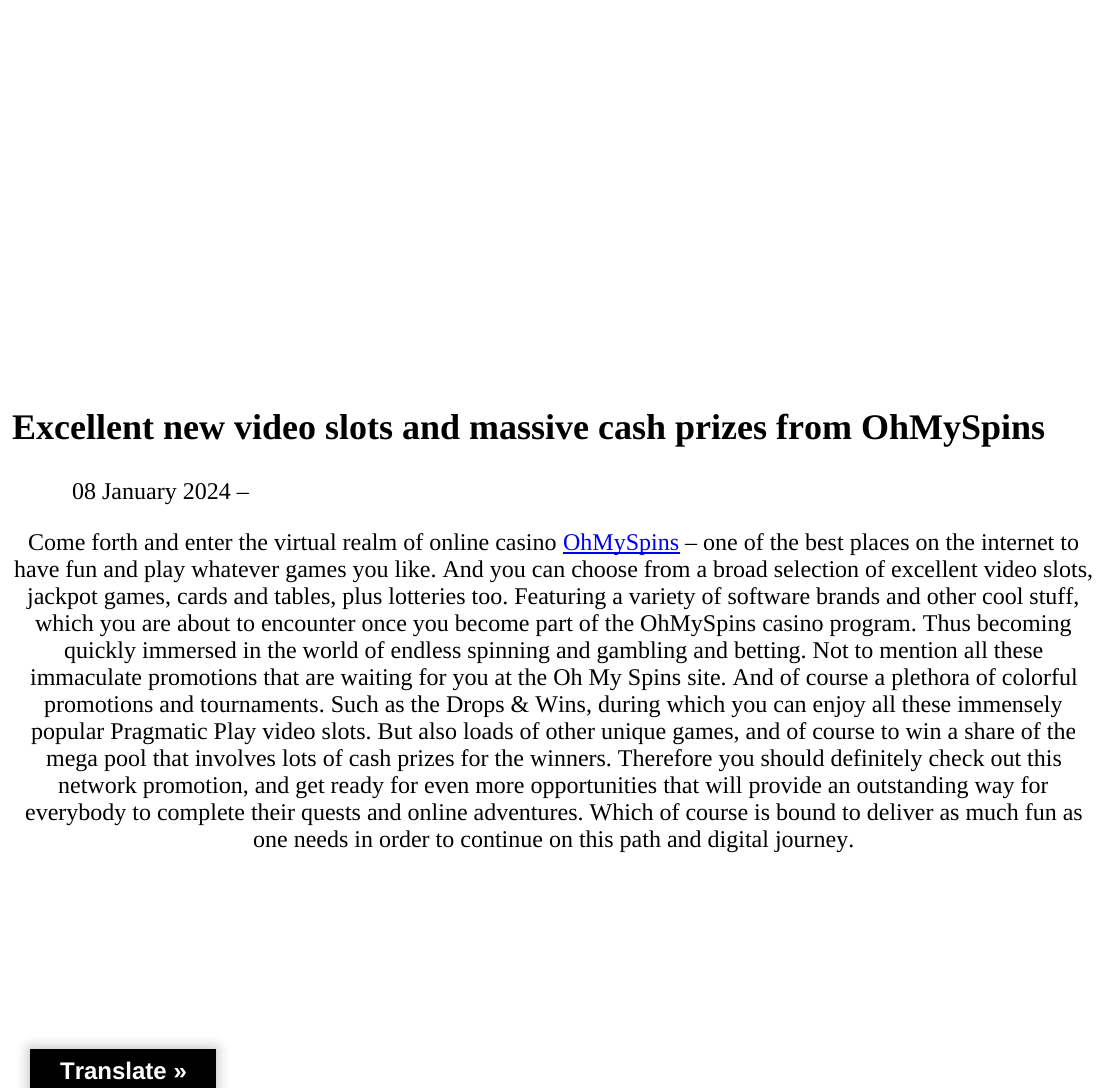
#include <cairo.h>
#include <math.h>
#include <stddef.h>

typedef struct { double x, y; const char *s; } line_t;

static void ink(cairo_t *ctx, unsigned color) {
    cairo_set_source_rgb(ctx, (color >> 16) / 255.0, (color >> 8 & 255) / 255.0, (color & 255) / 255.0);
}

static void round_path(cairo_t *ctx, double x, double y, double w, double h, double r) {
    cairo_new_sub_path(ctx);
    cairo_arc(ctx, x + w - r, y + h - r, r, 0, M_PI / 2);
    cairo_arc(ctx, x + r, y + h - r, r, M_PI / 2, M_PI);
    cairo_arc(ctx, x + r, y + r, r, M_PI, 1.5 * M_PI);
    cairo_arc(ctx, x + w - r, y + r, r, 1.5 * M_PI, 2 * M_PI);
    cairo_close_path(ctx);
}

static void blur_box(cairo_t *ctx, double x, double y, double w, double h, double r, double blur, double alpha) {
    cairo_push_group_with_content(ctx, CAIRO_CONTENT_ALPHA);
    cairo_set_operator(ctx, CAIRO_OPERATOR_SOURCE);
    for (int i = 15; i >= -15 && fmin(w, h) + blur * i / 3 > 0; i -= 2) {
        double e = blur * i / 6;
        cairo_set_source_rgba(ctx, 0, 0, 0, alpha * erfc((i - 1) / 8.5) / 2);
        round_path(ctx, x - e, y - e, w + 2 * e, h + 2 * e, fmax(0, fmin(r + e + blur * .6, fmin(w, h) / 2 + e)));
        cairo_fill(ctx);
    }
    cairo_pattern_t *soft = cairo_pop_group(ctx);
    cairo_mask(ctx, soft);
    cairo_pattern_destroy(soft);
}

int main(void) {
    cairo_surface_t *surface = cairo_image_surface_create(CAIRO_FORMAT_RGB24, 1106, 1088);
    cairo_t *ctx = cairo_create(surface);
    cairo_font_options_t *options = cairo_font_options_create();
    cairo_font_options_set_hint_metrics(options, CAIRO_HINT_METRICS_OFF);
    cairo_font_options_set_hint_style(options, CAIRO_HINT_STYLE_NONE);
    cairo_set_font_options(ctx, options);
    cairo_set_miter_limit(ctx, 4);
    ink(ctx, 0xFFFFFF);
    cairo_paint(ctx);
    cairo_select_font_face(ctx, "Liberation Serif", CAIRO_FONT_SLANT_NORMAL, CAIRO_FONT_WEIGHT_BOLD);
    cairo_set_font_size(ctx, 36);
    ink(ctx, 0x000000);
    cairo_move_to(ctx, 12, 439);
    cairo_show_text(ctx, "Excellent new video slots and massive cash prizes from OhMySpins");
    cairo_select_font_face(ctx, "Liberation Serif", CAIRO_FONT_SLANT_NORMAL, CAIRO_FONT_WEIGHT_NORMAL);
    cairo_set_font_size(ctx, 24);
    cairo_move_to(ctx, 72, 499);
    cairo_show_text(ctx, "08 January 2024 –");
    cairo_move_to(ctx, 28, 550);
    cairo_show_text(ctx, "Come forth and enter the virtual realm of online casino");
    ink(ctx, 0x0000EE);
    cairo_rectangle(ctx, 563, 552, 117, 2);
    cairo_fill(ctx);
    cairo_move_to(ctx, 563, 550);
    cairo_show_text(ctx, "OhMySpins");
    ink(ctx, 0x000000);
    {
        static const line_t items[] = {
            {685, 550, "– one of the best places on the internet to"},
            {14, 577, "have fun and play whatever games you like. And you can choose from a broad selection of excellent video slots,"},
            {27, 604, "jackpot games, cards and tables, plus lotteries too. Featuring a variety of software brands and other cool stuff,"},
            {35, 631, "which you are about to encounter once you become part of the OhMySpins casino program. Thus becoming"},
            {64, 658, "quickly immersed in the world of endless spinning and gambling and betting. Not to mention all these"},
            {30, 685, "immaculate promotions that are waiting for you at the Oh My Spins site. And of course a plethora of colorful"},
            {44, 712, "promotions and tournaments. Such as the Drops & Wins, during which you can enjoy all these immensely"},
            {31, 739, "popular Pragmatic Play video slots. But also loads of other unique games, and of course to win a share of the"},
            {46, 766, "mega pool that involves lots of cash prizes for the winners. Therefore you should definitely check out this"},
            {58, 793, "network promotion, and get ready for even more opportunities that will provide an outstanding way for"},
            {25, 820, "everybody to complete their quests and online adventures. Which of course is bound to deliver as much fun as"},
            {253, 847, "one needs in order to continue on this path and digital journey."},
        };
        for (size_t i = 0; i < sizeof items / sizeof *items; i++) {
            cairo_move_to(ctx, items[i].x, items[i].y);
            cairo_show_text(ctx, items[i].s);
        }
    }
    ink(ctx, 0x000000);
    blur_box(ctx, 30, 1049, 186, 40, 0, 7, 0.3);
    ink(ctx, 0x000000);
    cairo_rectangle(ctx, 30, 1049, 186, 39);
    cairo_fill(ctx);
    cairo_select_font_face(ctx, "Liberation Sans", CAIRO_FONT_SLANT_NORMAL, CAIRO_FONT_WEIGHT_BOLD);
    ink(ctx, 0xFFFFFF);
    cairo_move_to(ctx, 60, 1079);
    cairo_show_text(ctx, "Translate »");
    cairo_surface_write_to_png(surface, "image.png");
    cairo_font_options_destroy(options);
    cairo_destroy(ctx);
    cairo_surface_destroy(surface);
    return 0;
}
